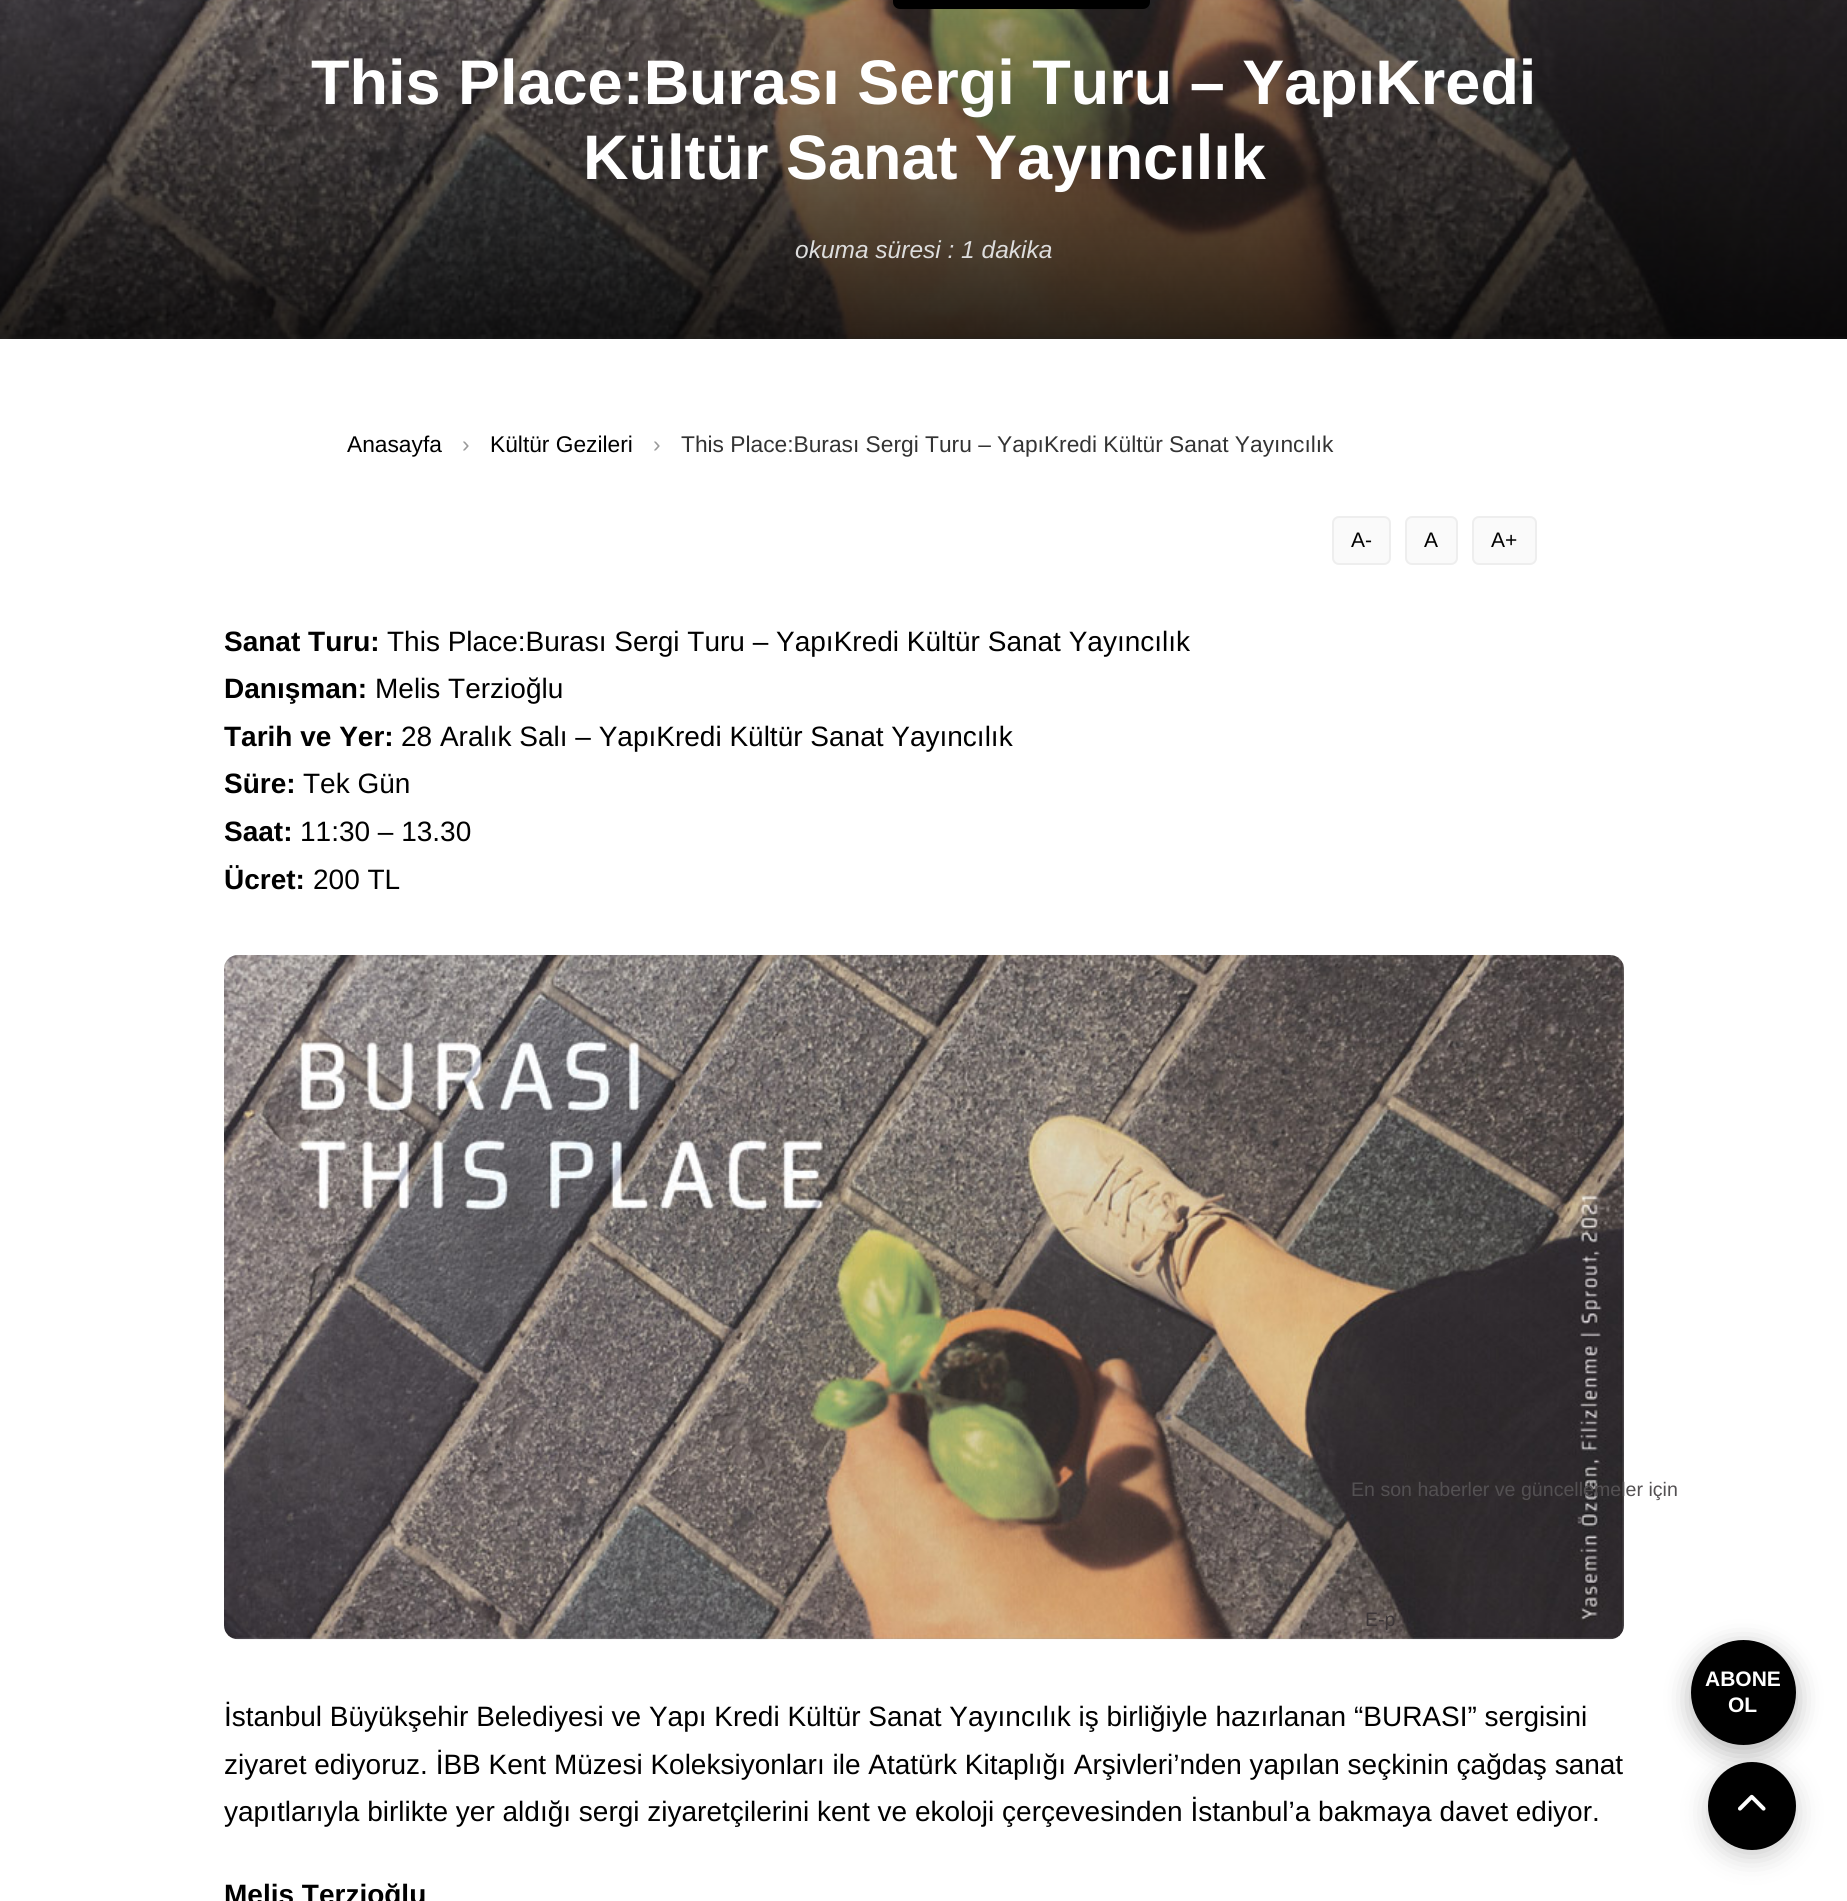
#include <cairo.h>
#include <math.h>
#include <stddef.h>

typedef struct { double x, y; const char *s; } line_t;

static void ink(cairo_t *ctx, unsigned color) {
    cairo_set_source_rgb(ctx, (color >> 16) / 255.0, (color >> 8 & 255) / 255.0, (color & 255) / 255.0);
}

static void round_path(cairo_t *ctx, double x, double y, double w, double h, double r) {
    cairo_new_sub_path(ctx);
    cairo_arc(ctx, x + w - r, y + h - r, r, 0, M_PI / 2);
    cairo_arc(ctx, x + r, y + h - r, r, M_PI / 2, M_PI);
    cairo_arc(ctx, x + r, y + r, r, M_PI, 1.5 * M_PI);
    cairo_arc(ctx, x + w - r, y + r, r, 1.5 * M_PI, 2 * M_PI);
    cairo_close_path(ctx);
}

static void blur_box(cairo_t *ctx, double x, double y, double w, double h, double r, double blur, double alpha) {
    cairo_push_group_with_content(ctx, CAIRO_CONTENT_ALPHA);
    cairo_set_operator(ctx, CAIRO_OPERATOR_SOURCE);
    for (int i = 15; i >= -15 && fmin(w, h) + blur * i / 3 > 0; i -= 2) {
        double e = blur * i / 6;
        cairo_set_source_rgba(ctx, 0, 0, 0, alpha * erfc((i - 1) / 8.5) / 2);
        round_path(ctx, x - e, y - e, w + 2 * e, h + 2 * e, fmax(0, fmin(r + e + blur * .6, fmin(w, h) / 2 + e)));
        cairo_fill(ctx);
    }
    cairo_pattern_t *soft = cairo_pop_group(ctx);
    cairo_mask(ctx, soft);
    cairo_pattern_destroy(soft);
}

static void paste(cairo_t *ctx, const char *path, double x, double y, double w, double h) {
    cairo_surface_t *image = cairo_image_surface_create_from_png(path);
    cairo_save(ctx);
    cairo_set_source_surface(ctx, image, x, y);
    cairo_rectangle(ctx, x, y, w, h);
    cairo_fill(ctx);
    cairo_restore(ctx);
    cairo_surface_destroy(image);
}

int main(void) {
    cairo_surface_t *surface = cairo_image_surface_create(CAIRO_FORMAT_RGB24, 1847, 1901);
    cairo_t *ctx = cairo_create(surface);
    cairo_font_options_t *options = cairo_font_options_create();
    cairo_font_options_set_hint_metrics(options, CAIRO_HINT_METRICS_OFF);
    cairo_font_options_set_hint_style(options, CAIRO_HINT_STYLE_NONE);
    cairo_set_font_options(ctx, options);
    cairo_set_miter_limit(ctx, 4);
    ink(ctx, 0xFFFFFF);
    cairo_paint(ctx);
    paste(ctx, "media/1.png", 0, 0, 1847, 339);
    ink(ctx, 0x000000);
    round_path(ctx, 893, -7, 257, 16, 7);
    cairo_fill(ctx);
    cairo_select_font_face(ctx, "Liberation Sans", CAIRO_FONT_SLANT_NORMAL, CAIRO_FONT_WEIGHT_BOLD);
    cairo_set_font_size(ctx, 63);
    ink(ctx, 0xFFFFFF);
    cairo_move_to(ctx, 311, 104);
    cairo_show_text(ctx, "This Place:Burası Sergi Turu – YapıKredi");
    cairo_move_to(ctx, 583, 179);
    cairo_show_text(ctx, "Kültür Sanat Yayıncılık");
    cairo_select_font_face(ctx, "Liberation Sans", CAIRO_FONT_SLANT_ITALIC, CAIRO_FONT_WEIGHT_NORMAL);
    cairo_set_font_size(ctx, 24.5);
    ink(ctx, 0xDDDDDD);
    cairo_move_to(ctx, 795, 258);
    cairo_show_text(ctx, "okuma süresi : 1 dakika");
    cairo_select_font_face(ctx, "Liberation Sans", CAIRO_FONT_SLANT_NORMAL, CAIRO_FONT_WEIGHT_NORMAL);
    cairo_set_font_size(ctx, 22.75);
    ink(ctx, 0x000000);
    cairo_move_to(ctx, 347, 452);
    cairo_show_text(ctx, "Anasayfa");
    ink(ctx, 0x999999);
    cairo_move_to(ctx, 462, 452);
    cairo_show_text(ctx, "›");
    ink(ctx, 0x000000);
    cairo_move_to(ctx, 490, 452);
    cairo_show_text(ctx, "Kültür Gezileri");
    ink(ctx, 0x999999);
    cairo_move_to(ctx, 653, 452);
    cairo_show_text(ctx, "›");
    ink(ctx, 0x333333);
    cairo_move_to(ctx, 681, 452);
    cairo_show_text(ctx, "This Place:Burası Sergi Turu – YapıKredi Kültür Sanat Yayıncılık");
    ink(ctx, 0xFAFAFA);
    round_path(ctx, 1333, 517, 57, 47, 6);
    cairo_fill_preserve(ctx);
    ink(ctx, 0xEEEEEE);
    cairo_stroke(ctx);
    cairo_set_font_size(ctx, 21);
    ink(ctx, 0x000000);
    cairo_move_to(ctx, 1351, 547);
    cairo_show_text(ctx, "A-");
    ink(ctx, 0xFAFAFA);
    round_path(ctx, 1406, 517, 51, 47, 6);
    cairo_fill_preserve(ctx);
    ink(ctx, 0xEEEEEE);
    cairo_stroke(ctx);
    ink(ctx, 0x000000);
    cairo_move_to(ctx, 1424, 547);
    cairo_show_text(ctx, "A");
    ink(ctx, 0xFAFAFA);
    round_path(ctx, 1473, 517, 63, 47, 6);
    cairo_fill_preserve(ctx);
    ink(ctx, 0xEEEEEE);
    cairo_stroke(ctx);
    ink(ctx, 0x000000);
    cairo_move_to(ctx, 1491, 547);
    cairo_show_text(ctx, "A+");
    cairo_select_font_face(ctx, "Liberation Sans", CAIRO_FONT_SLANT_NORMAL, CAIRO_FONT_WEIGHT_BOLD);
    cairo_set_font_size(ctx, 28);
    cairo_move_to(ctx, 224, 651);
    cairo_show_text(ctx, "Sanat Turu:");
    cairo_select_font_face(ctx, "Liberation Sans", CAIRO_FONT_SLANT_NORMAL, CAIRO_FONT_WEIGHT_NORMAL);
    cairo_move_to(ctx, 387, 651);
    cairo_show_text(ctx, "This Place:Burası Sergi Turu – YapıKredi Kültür Sanat Yayıncılık");
    cairo_select_font_face(ctx, "Liberation Sans", CAIRO_FONT_SLANT_NORMAL, CAIRO_FONT_WEIGHT_BOLD);
    cairo_move_to(ctx, 224, 698);
    cairo_show_text(ctx, "Danışman:");
    cairo_select_font_face(ctx, "Liberation Sans", CAIRO_FONT_SLANT_NORMAL, CAIRO_FONT_WEIGHT_NORMAL);
    cairo_move_to(ctx, 375, 698);
    cairo_show_text(ctx, "Melis Terzioğlu");
    cairo_select_font_face(ctx, "Liberation Sans", CAIRO_FONT_SLANT_NORMAL, CAIRO_FONT_WEIGHT_BOLD);
    cairo_move_to(ctx, 224, 746);
    cairo_show_text(ctx, "Tarih ve Yer:");
    cairo_select_font_face(ctx, "Liberation Sans", CAIRO_FONT_SLANT_NORMAL, CAIRO_FONT_WEIGHT_NORMAL);
    cairo_move_to(ctx, 401, 746);
    cairo_show_text(ctx, "28 Aralık Salı – YapıKredi Kültür Sanat Yayıncılık");
    cairo_select_font_face(ctx, "Liberation Sans", CAIRO_FONT_SLANT_NORMAL, CAIRO_FONT_WEIGHT_BOLD);
    cairo_move_to(ctx, 224, 793);
    cairo_show_text(ctx, "Süre:");
    cairo_select_font_face(ctx, "Liberation Sans", CAIRO_FONT_SLANT_NORMAL, CAIRO_FONT_WEIGHT_NORMAL);
    cairo_move_to(ctx, 303, 793);
    cairo_show_text(ctx, "Tek Gün");
    cairo_select_font_face(ctx, "Liberation Sans", CAIRO_FONT_SLANT_NORMAL, CAIRO_FONT_WEIGHT_BOLD);
    cairo_move_to(ctx, 224, 841);
    cairo_show_text(ctx, "Saat:");
    cairo_select_font_face(ctx, "Liberation Sans", CAIRO_FONT_SLANT_NORMAL, CAIRO_FONT_WEIGHT_NORMAL);
    cairo_move_to(ctx, 300, 841);
    cairo_show_text(ctx, "11:30 – 13.30");
    cairo_select_font_face(ctx, "Liberation Sans", CAIRO_FONT_SLANT_NORMAL, CAIRO_FONT_WEIGHT_BOLD);
    cairo_move_to(ctx, 224, 889);
    cairo_show_text(ctx, "Ücret:");
    cairo_select_font_face(ctx, "Liberation Sans", CAIRO_FONT_SLANT_NORMAL, CAIRO_FONT_WEIGHT_NORMAL);
    cairo_move_to(ctx, 313, 889);
    cairo_show_text(ctx, "200 TL");
    paste(ctx, "media/2.png", 224, 955, 1400, 685);
    {
        static const line_t items[] = {
            {224, 1726, "İstanbul Büyükşehir Belediyesi ve Yapı Kredi Kültür Sanat Yayıncılık iş birliğiyle hazırlanan “BURASI” sergisini"},
            {224, 1774, "ziyaret ediyoruz. İBB Kent Müzesi Koleksiyonları ile Atatürk Kitaplığı Arşivleri’nden yapılan seçkinin çağdaş sanat"},
            {224, 1821, "yapıtlarıyla birlikte yer aldığı sergi ziyaretçilerini kent ve ekoloji çerçevesinden İstanbul’a bakmaya davet ediyor."},
        };
        for (size_t i = 0; i < sizeof items / sizeof *items; i++) {
            cairo_move_to(ctx, items[i].x, items[i].y);
            cairo_show_text(ctx, items[i].s);
        }
    }
    cairo_select_font_face(ctx, "Liberation Sans", CAIRO_FONT_SLANT_NORMAL, CAIRO_FONT_WEIGHT_BOLD);
    cairo_move_to(ctx, 224, 1904);
    cairo_show_text(ctx, "Melis Terzioğlu");
    cairo_select_font_face(ctx, "Liberation Sans", CAIRO_FONT_SLANT_NORMAL, CAIRO_FONT_WEIGHT_NORMAL);
    cairo_set_font_size(ctx, 19.6);
    ink(ctx, 0x535052);
    cairo_move_to(ctx, 1351, 1496);
    cairo_show_text(ctx, "En son haberler ve güncellemeler için");
    ink(ctx, 0x3C3638);
    cairo_move_to(ctx, 1365, 1626);
    cairo_show_text(ctx, "E-p");
    ink(ctx, 0x000000);
    blur_box(ctx, 1708, 1769, 88, 88, 44, 13, 0.2);
    ink(ctx, 0x000000);
    cairo_arc(ctx, 1752, 1806, 44, 0, 2 * M_PI);
    cairo_fill(ctx);
    ink(ctx, 0x000000);
    blur_box(ctx, 1691, 1647, 105, 105, 52.5, 13, 0.3);
    ink(ctx, 0x000000);
    cairo_arc(ctx, 1743.5, 1692.5, 52.5, 0, 2 * M_PI);
    cairo_fill(ctx);
    cairo_select_font_face(ctx, "Liberation Sans", CAIRO_FONT_SLANT_NORMAL, CAIRO_FONT_WEIGHT_BOLD);
    cairo_set_font_size(ctx, 21);
    ink(ctx, 0xFFFFFF);
    cairo_move_to(ctx, 1705, 1686);
    cairo_show_text(ctx, "ABONE");
    cairo_move_to(ctx, 1728, 1712);
    cairo_show_text(ctx, "OL");
    paste(ctx, "media/3.png", 1738, 1794, 28, 17);
    cairo_surface_write_to_png(surface, "image.png");
    cairo_font_options_destroy(options);
    cairo_destroy(ctx);
    cairo_surface_destroy(surface);
    return 0;
}
